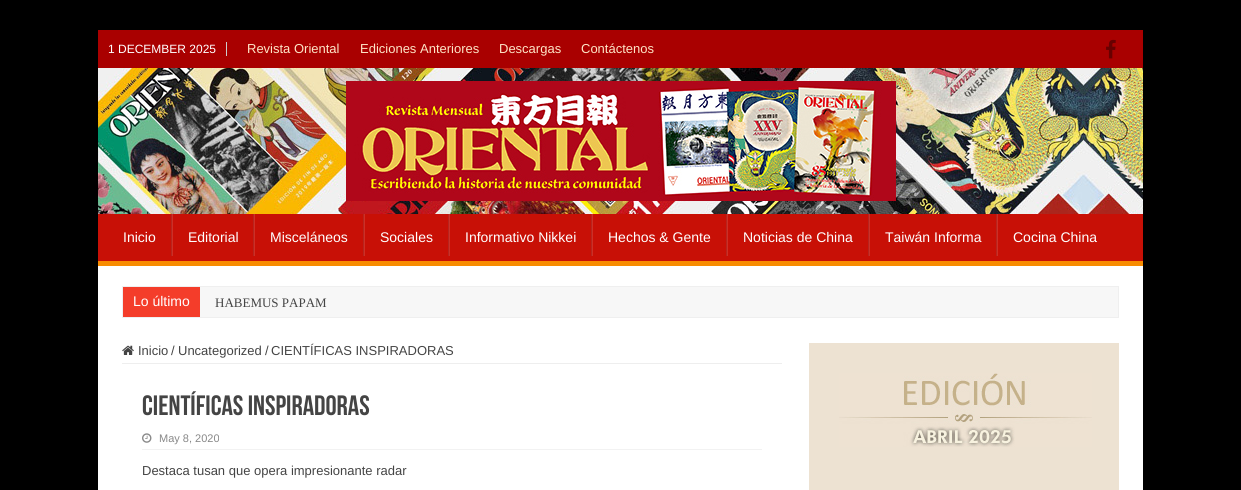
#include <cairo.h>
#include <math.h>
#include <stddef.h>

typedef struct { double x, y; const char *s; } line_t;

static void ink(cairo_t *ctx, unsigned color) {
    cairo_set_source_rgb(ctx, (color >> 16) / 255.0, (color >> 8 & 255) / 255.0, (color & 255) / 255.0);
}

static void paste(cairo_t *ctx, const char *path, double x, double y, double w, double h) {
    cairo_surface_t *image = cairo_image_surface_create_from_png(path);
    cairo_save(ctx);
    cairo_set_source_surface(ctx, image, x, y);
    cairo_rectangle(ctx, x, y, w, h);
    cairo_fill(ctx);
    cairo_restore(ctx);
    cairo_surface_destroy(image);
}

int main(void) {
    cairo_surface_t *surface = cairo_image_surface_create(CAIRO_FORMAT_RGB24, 1241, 490);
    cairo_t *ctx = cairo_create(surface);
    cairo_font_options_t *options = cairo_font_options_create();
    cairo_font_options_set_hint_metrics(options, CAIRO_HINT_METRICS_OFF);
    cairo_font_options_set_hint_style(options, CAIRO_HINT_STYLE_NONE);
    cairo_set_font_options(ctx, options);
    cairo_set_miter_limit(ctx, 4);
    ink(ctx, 0x000000);
    cairo_paint(ctx);
    ink(ctx, 0xFFFFFF);
    cairo_rectangle(ctx, 98, 266, 1045, 224);
    cairo_fill(ctx);
    paste(ctx, "media/1.png", 98, 68, 1045, 146);
    ink(ctx, 0xA90000);
    cairo_rectangle(ctx, 98, 30, 1045, 38);
    cairo_fill(ctx);
    ink(ctx, 0xCCCCCC);
    cairo_rectangle(ctx, 226, 42, 1, 14);
    cairo_fill(ctx);
    cairo_select_font_face(ctx, "Liberation Sans", CAIRO_FONT_SLANT_NORMAL, CAIRO_FONT_WEIGHT_NORMAL);
    cairo_set_font_size(ctx, 12);
    ink(ctx, 0xFFFFFF);
    cairo_move_to(ctx, 108, 53);
    cairo_show_text(ctx, "1 DECEMBER 2025");
    cairo_set_font_size(ctx, 13);
    ink(ctx, 0xFEE5C7);
    {
        static const line_t items[] = {
            {247, 53, "Revista Oriental"},
            {360, 53, "Ediciones Anteriores"},
            {499, 53, "Descargas"},
            {581, 53, "Contáctenos"},
        };
        for (size_t i = 0; i < sizeof items / sizeof *items; i++) {
            cairo_move_to(ctx, items[i].x, items[i].y);
            cairo_show_text(ctx, items[i].s);
        }
    }
    paste(ctx, "media/2.png", 1106, 39, 10, 20);
    paste(ctx, "media/3.png", 346, 81, 550, 120);
    ink(ctx, 0xC81006);
    cairo_rectangle(ctx, 98, 214, 1045, 47);
    cairo_fill(ctx);
    ink(ctx, 0xF88C00);
    cairo_rectangle(ctx, 98, 261, 1045, 5);
    cairo_fill(ctx);
    cairo_set_font_size(ctx, 14);
    ink(ctx, 0xFFFFFF);
    cairo_move_to(ctx, 123, 242);
    cairo_show_text(ctx, "Inicio");
    ink(ctx, 0xB7241D);
    cairo_rectangle(ctx, 171, 214, 1, 42);
    cairo_fill(ctx);
    ink(ctx, 0xCF2F26);
    cairo_rectangle(ctx, 172, 214, 1, 42);
    cairo_fill(ctx);
    ink(ctx, 0xFFFFFF);
    cairo_move_to(ctx, 188, 242);
    cairo_show_text(ctx, "Editorial");
    ink(ctx, 0xB7241D);
    cairo_rectangle(ctx, 253, 214, 1, 42);
    cairo_fill(ctx);
    ink(ctx, 0xCF2F26);
    cairo_rectangle(ctx, 254, 214, 1, 42);
    cairo_fill(ctx);
    ink(ctx, 0xFFFFFF);
    cairo_move_to(ctx, 270, 242);
    cairo_show_text(ctx, "Misceláneos");
    ink(ctx, 0xB7241D);
    cairo_rectangle(ctx, 363, 214, 1, 42);
    cairo_fill(ctx);
    ink(ctx, 0xCF2F26);
    cairo_rectangle(ctx, 364, 214, 1, 42);
    cairo_fill(ctx);
    ink(ctx, 0xFFFFFF);
    cairo_move_to(ctx, 380, 242);
    cairo_show_text(ctx, "Sociales");
    ink(ctx, 0xB7241D);
    cairo_rectangle(ctx, 448, 214, 1, 42);
    cairo_fill(ctx);
    ink(ctx, 0xCF2F26);
    cairo_rectangle(ctx, 449, 214, 1, 42);
    cairo_fill(ctx);
    ink(ctx, 0xFFFFFF);
    cairo_move_to(ctx, 465, 242);
    cairo_show_text(ctx, "Informativo Nikkei");
    ink(ctx, 0xB7241D);
    cairo_rectangle(ctx, 591, 214, 1, 42);
    cairo_fill(ctx);
    ink(ctx, 0xCF2F26);
    cairo_rectangle(ctx, 592, 214, 1, 42);
    cairo_fill(ctx);
    ink(ctx, 0xFFFFFF);
    cairo_move_to(ctx, 608, 242);
    cairo_show_text(ctx, "Hechos & Gente");
    ink(ctx, 0xB7241D);
    cairo_rectangle(ctx, 726, 214, 1, 42);
    cairo_fill(ctx);
    ink(ctx, 0xCF2F26);
    cairo_rectangle(ctx, 727, 214, 1, 42);
    cairo_fill(ctx);
    ink(ctx, 0xFFFFFF);
    cairo_move_to(ctx, 743, 242);
    cairo_show_text(ctx, "Noticias de China");
    ink(ctx, 0xB7241D);
    cairo_rectangle(ctx, 868, 214, 1, 42);
    cairo_fill(ctx);
    ink(ctx, 0xCF2F26);
    cairo_rectangle(ctx, 869, 214, 1, 42);
    cairo_fill(ctx);
    ink(ctx, 0xFFFFFF);
    cairo_move_to(ctx, 885, 242);
    cairo_show_text(ctx, "Taiwán Informa");
    ink(ctx, 0xB7241D);
    cairo_rectangle(ctx, 996, 214, 1, 42);
    cairo_fill(ctx);
    ink(ctx, 0xCF2F26);
    cairo_rectangle(ctx, 997, 214, 1, 42);
    cairo_fill(ctx);
    ink(ctx, 0xFFFFFF);
    cairo_move_to(ctx, 1013, 242);
    cairo_show_text(ctx, "Cocina China");
    ink(ctx, 0xF7F7F7);
    cairo_rectangle(ctx, 200, 287, 918, 30);
    cairo_fill(ctx);
    cairo_rectangle(ctx, 122.5, 286.5, 996, 31);
    ink(ctx, 0xEFEFEF);
    cairo_set_line_width(ctx, 1);
    cairo_stroke(ctx);
    ink(ctx, 0xF43D2A);
    cairo_rectangle(ctx, 123, 287, 77, 30);
    cairo_fill(ctx);
    ink(ctx, 0xFFFFFF);
    cairo_move_to(ctx, 133, 306);
    cairo_show_text(ctx, "Lo último");
    cairo_select_font_face(ctx, "Liberation Serif", CAIRO_FONT_SLANT_NORMAL, CAIRO_FONT_WEIGHT_NORMAL);
    cairo_set_font_size(ctx, 13);
    ink(ctx, 0x444444);
    cairo_move_to(ctx, 215, 307);
    cairo_show_text(ctx, "HABEMUS PAPAM");
    ink(ctx, 0xEEEEEE);
    cairo_rectangle(ctx, 122, 363, 660, 1);
    cairo_fill(ctx);
    paste(ctx, "media/4.png", 122, 345, 12, 10);
    cairo_select_font_face(ctx, "Liberation Sans", CAIRO_FONT_SLANT_NORMAL, CAIRO_FONT_WEIGHT_NORMAL);
    ink(ctx, 0x444444);
    {
        static const line_t items[] = {
            {138, 355, "Inicio"},
            {171, 355, "/"},
            {178, 355, "Uncategorized"},
            {265, 355, "/"},
            {271, 355, "CIENTÍFICAS INSPIRADORAS"},
        };
        for (size_t i = 0; i < sizeof items / sizeof *items; i++) {
            cairo_move_to(ctx, items[i].x, items[i].y);
            cairo_show_text(ctx, items[i].s);
        }
    }
    cairo_select_font_face(ctx, "Bebas Neue", CAIRO_FONT_SLANT_NORMAL, CAIRO_FONT_WEIGHT_BOLD);
    cairo_set_font_size(ctx, 28);
    cairo_move_to(ctx, 142, 415);
    cairo_show_text(ctx, "CIENTÍFICAS INSPIRADORAS");
    ink(ctx, 0xF2F2F2);
    cairo_rectangle(ctx, 142, 449, 620, 1);
    cairo_fill(ctx);
    paste(ctx, "media/5.png", 142, 433, 10, 10);
    cairo_select_font_face(ctx, "Liberation Sans", CAIRO_FONT_SLANT_NORMAL, CAIRO_FONT_WEIGHT_NORMAL);
    cairo_set_font_size(ctx, 11);
    ink(ctx, 0x888888);
    cairo_move_to(ctx, 159, 442);
    cairo_show_text(ctx, "May 8, 2020");
    cairo_set_font_size(ctx, 13);
    ink(ctx, 0x444444);
    cairo_move_to(ctx, 142, 475);
    cairo_show_text(ctx, "Destaca tusan que opera impresionante radar");
    ink(ctx, 0xEDE2D2);
    cairo_rectangle(ctx, 809, 343, 310, 147);
    cairo_fill(ctx);
    paste(ctx, "media/6.png", 839, 373, 253, 74);
    cairo_surface_write_to_png(surface, "image.png");
    cairo_font_options_destroy(options);
    cairo_destroy(ctx);
    cairo_surface_destroy(surface);
    return 0;
}
